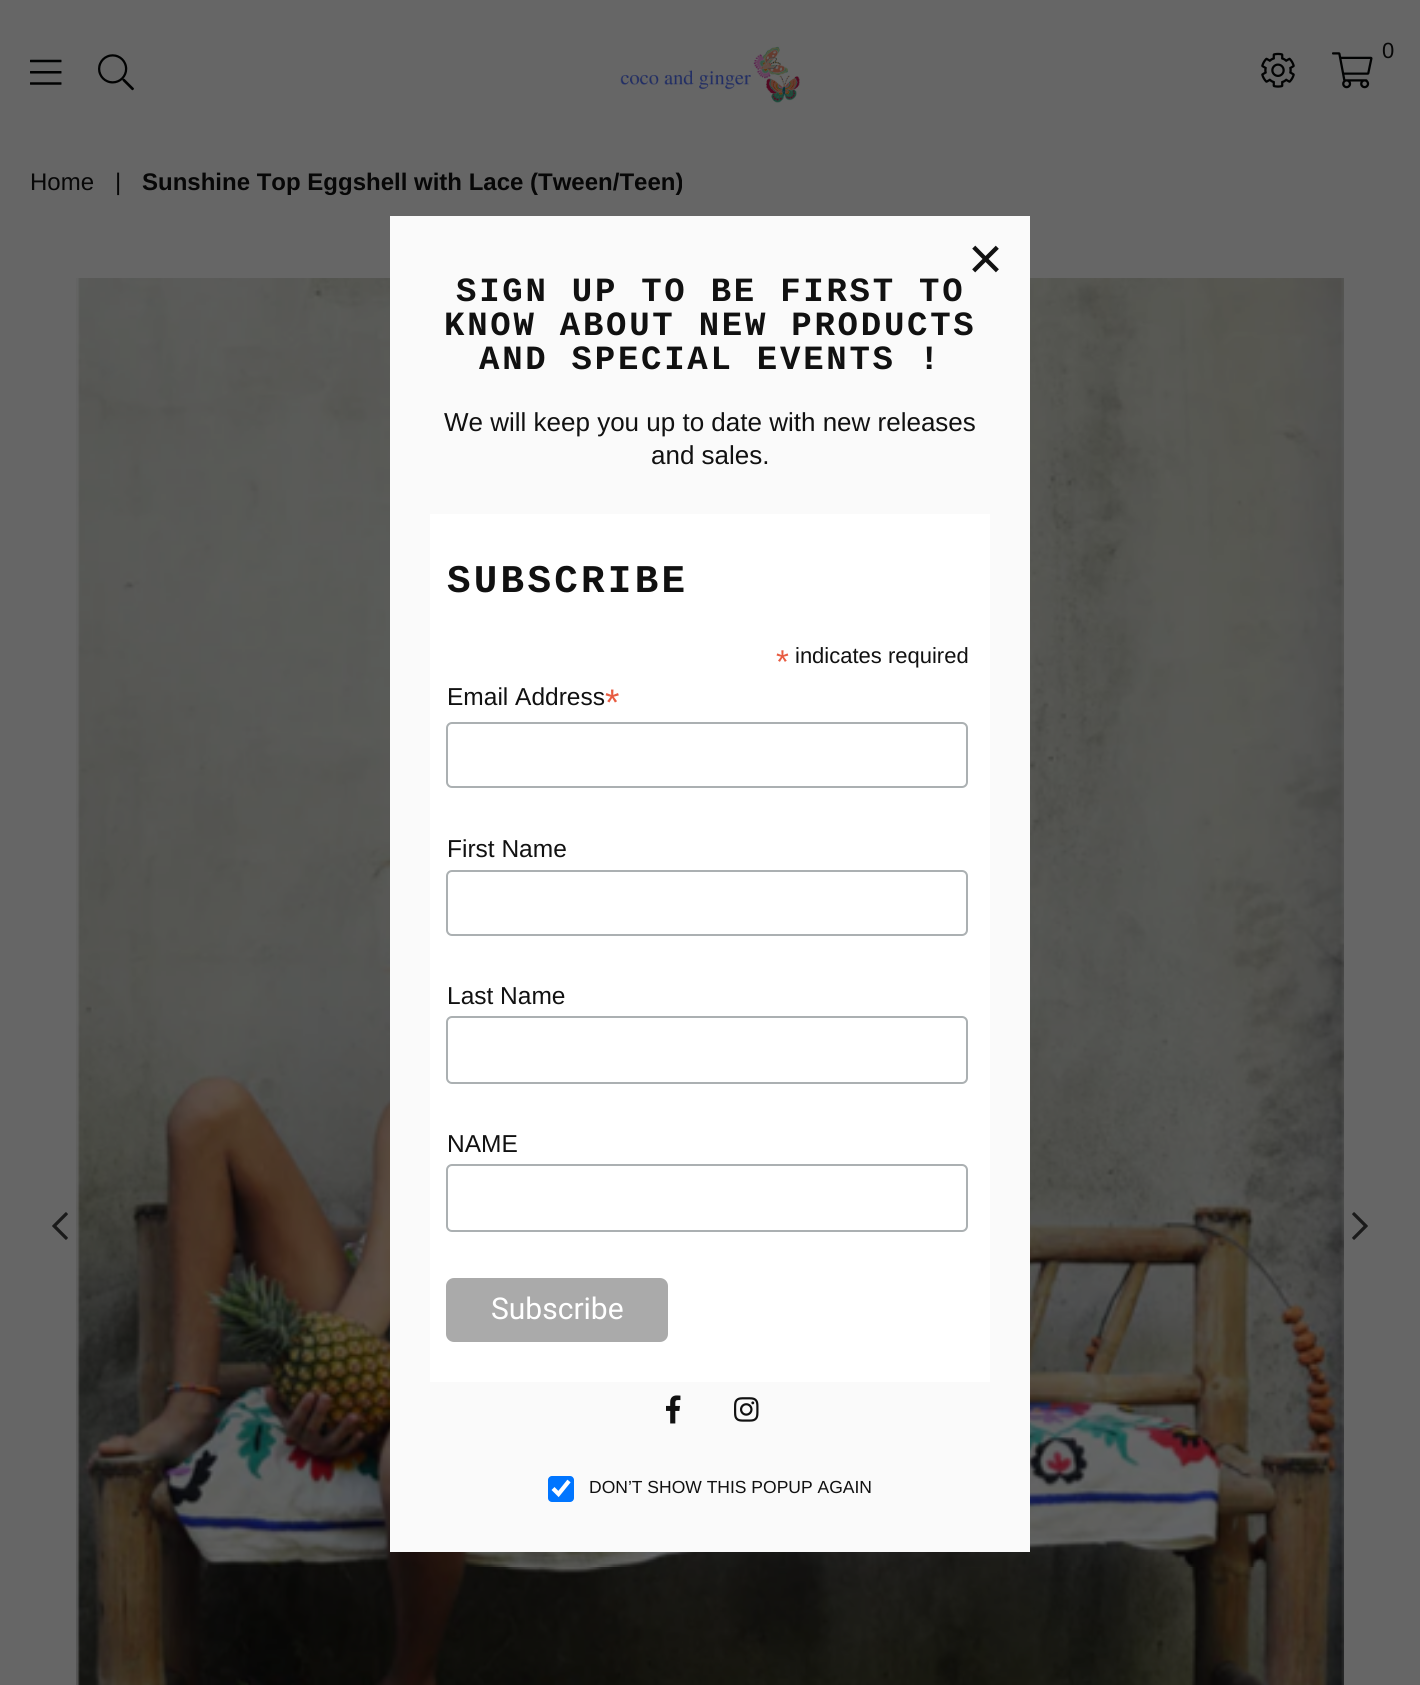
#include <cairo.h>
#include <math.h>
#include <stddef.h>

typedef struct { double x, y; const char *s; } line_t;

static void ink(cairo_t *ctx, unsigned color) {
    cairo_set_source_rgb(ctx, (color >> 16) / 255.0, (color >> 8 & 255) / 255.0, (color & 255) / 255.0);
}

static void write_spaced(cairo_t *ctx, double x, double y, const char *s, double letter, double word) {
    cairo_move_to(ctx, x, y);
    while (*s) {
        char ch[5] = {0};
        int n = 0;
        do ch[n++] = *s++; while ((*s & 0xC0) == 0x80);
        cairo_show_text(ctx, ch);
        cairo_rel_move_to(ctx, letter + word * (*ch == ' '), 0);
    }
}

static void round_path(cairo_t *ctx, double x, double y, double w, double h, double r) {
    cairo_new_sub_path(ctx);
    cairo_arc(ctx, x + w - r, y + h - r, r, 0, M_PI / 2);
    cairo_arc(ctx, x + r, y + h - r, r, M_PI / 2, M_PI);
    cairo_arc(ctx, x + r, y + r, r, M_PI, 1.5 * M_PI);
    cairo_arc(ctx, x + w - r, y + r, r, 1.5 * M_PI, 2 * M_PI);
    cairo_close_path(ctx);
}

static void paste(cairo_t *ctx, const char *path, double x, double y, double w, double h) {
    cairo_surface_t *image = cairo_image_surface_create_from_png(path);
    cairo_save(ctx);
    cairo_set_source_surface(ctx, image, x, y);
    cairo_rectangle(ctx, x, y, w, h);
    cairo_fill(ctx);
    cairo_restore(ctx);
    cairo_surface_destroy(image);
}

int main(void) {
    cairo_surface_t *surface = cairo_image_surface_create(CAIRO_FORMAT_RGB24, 1420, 1685);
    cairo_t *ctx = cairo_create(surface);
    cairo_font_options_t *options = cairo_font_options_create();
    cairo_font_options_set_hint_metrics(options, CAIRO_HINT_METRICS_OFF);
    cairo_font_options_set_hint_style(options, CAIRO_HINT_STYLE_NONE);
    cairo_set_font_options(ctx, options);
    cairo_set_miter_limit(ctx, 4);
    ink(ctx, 0x666666);
    cairo_paint(ctx);
    paste(ctx, "media/1.png", 30, 59, 32, 26);
    paste(ctx, "media/2.png", 98, 54, 36, 37);
    paste(ctx, "media/3.png", 620, 46, 180, 57);
    paste(ctx, "media/4.png", 1261, 52, 34, 36);
    paste(ctx, "media/5.png", 1332, 52, 41, 37);
    cairo_select_font_face(ctx, "Liberation Sans", CAIRO_FONT_SLANT_NORMAL, CAIRO_FONT_WEIGHT_NORMAL);
    cairo_set_font_size(ctx, 22);
    ink(ctx, 0x070707);
    cairo_move_to(ctx, 1382, 58);
    cairo_show_text(ctx, "0");
    cairo_set_font_size(ctx, 24);
    cairo_move_to(ctx, 30, 190);
    cairo_show_text(ctx, "Home");
    cairo_move_to(ctx, 115, 190);
    cairo_show_text(ctx, "|");
    cairo_select_font_face(ctx, "Liberation Sans", CAIRO_FONT_SLANT_NORMAL, CAIRO_FONT_WEIGHT_BOLD);
    cairo_move_to(ctx, 142, 190);
    cairo_show_text(ctx, "Sunshine Top Eggshell with Lace (Tween/Teen)");
    paste(ctx, "media/6.png", 52, 1212, 16, 28);
    paste(ctx, "media/7.png", 76, 278, 1268, 1407);
    paste(ctx, "media/8.png", 1352, 1212, 16, 28);
    ink(ctx, 0xFAFAFA);
    cairo_rectangle(ctx, 390, 216, 640, 1336);
    cairo_fill(ctx);
    cairo_select_font_face(ctx, "Liberation Sans", CAIRO_FONT_SLANT_NORMAL, CAIRO_FONT_WEIGHT_NORMAL);
    cairo_set_font_size(ctx, 60);
    ink(ctx, 0x111111);
    cairo_move_to(ctx, 968, 279);
    cairo_show_text(ctx, "×");
    cairo_select_font_face(ctx, "Liberation Mono", CAIRO_FONT_SLANT_NORMAL, CAIRO_FONT_WEIGHT_BOLD);
    cairo_set_font_size(ctx, 34);
    {
        static const line_t items[] = {
            {456, 301, "SIGN UP TO BE FIRST TO"},
            {444, 335, "KNOW ABOUT NEW PRODUCTS"},
            {479, 369, "AND SPECIAL EVENTS !"},
        };
        for (size_t i = 0; i < sizeof items / sizeof *items; i++) {
            write_spaced(ctx, items[i].x, items[i].y, items[i].s, 2.75, 0);
        }
    }
    cairo_select_font_face(ctx, "Liberation Sans", CAIRO_FONT_SLANT_NORMAL, CAIRO_FONT_WEIGHT_NORMAL);
    cairo_set_font_size(ctx, 26);
    cairo_move_to(ctx, 444, 431);
    cairo_show_text(ctx, "We will keep you up to date with new releases");
    cairo_move_to(ctx, 651, 464);
    cairo_show_text(ctx, "and sales.");
    ink(ctx, 0xFFFFFF);
    cairo_rectangle(ctx, 430, 514, 560, 868);
    cairo_fill(ctx);
    cairo_select_font_face(ctx, "Liberation Mono", CAIRO_FONT_SLANT_NORMAL, CAIRO_FONT_WEIGHT_BOLD);
    cairo_set_font_size(ctx, 39.25);
    ink(ctx, 0x111111);
    write_spaced(ctx, 447, 592, "SUBSCRIBE", 3.25, 0);
    cairo_select_font_face(ctx, "Liberation Sans", CAIRO_FONT_SLANT_NORMAL, CAIRO_FONT_WEIGHT_NORMAL);
    cairo_set_font_size(ctx, 33);
    ink(ctx, 0xE85C41);
    cairo_move_to(ctx, 776, 673);
    cairo_show_text(ctx, "*");
    cairo_set_font_size(ctx, 22);
    ink(ctx, 0x111111);
    cairo_move_to(ctx, 795, 663);
    cairo_show_text(ctx, "indicates required");
    cairo_set_font_size(ctx, 24.5);
    cairo_move_to(ctx, 447, 705);
    cairo_show_text(ctx, "Email Address");
    cairo_set_font_size(ctx, 37);
    ink(ctx, 0xE85C41);
    cairo_move_to(ctx, 605, 715);
    cairo_show_text(ctx, "*");
    round_path(ctx, 447, 723, 520, 64, 5);
    ink(ctx, 0xABB0B2);
    cairo_stroke(ctx);
    cairo_set_font_size(ctx, 24.5);
    ink(ctx, 0x111111);
    cairo_move_to(ctx, 447, 857);
    cairo_show_text(ctx, "First Name");
    round_path(ctx, 447, 871, 520, 64, 5);
    ink(ctx, 0xABB0B2);
    cairo_stroke(ctx);
    ink(ctx, 0x111111);
    cairo_move_to(ctx, 447, 1004);
    cairo_show_text(ctx, "Last Name");
    round_path(ctx, 447, 1017, 520, 66, 5);
    ink(ctx, 0xABB0B2);
    cairo_stroke(ctx);
    ink(ctx, 0x111111);
    cairo_move_to(ctx, 447, 1152);
    cairo_show_text(ctx, "NAME");
    round_path(ctx, 447, 1165, 520, 66, 5);
    ink(ctx, 0xABB0B2);
    cairo_stroke(ctx);
    ink(ctx, 0xAAAAAA);
    round_path(ctx, 446, 1278, 222, 64, 8);
    cairo_fill(ctx);
    cairo_select_font_face(ctx, "Roboto", CAIRO_FONT_SLANT_NORMAL, CAIRO_FONT_WEIGHT_NORMAL);
    cairo_set_font_size(ctx, 30);
    ink(ctx, 0xFFFFFF);
    cairo_move_to(ctx, 491, 1319);
    cairo_show_text(ctx, "Subscribe");
    paste(ctx, "media/9.png", 666, 1395, 15, 29);
    paste(ctx, "media/10.png", 734, 1397, 25, 25);
    ink(ctx, 0x0075FF);
    round_path(ctx, 548, 1476, 26, 26, 4);
    cairo_fill(ctx);
    cairo_new_path(ctx);
    cairo_move_to(ctx, 553, 1488.5);
    cairo_line_to(ctx, 558.5, 1494);
    cairo_line_to(ctx, 569, 1481);
    ink(ctx, 0xFFFFFF);
    cairo_set_line_width(ctx, 4.2);
    cairo_stroke(ctx);
    cairo_select_font_face(ctx, "Liberation Sans", CAIRO_FONT_SLANT_NORMAL, CAIRO_FONT_WEIGHT_NORMAL);
    cairo_set_font_size(ctx, 17.5);
    ink(ctx, 0x111111);
    cairo_move_to(ctx, 589, 1493);
    cairo_show_text(ctx, "DON’T SHOW THIS POPUP AGAIN");
    cairo_surface_write_to_png(surface, "image.png");
    cairo_font_options_destroy(options);
    cairo_destroy(ctx);
    cairo_surface_destroy(surface);
    return 0;
}
